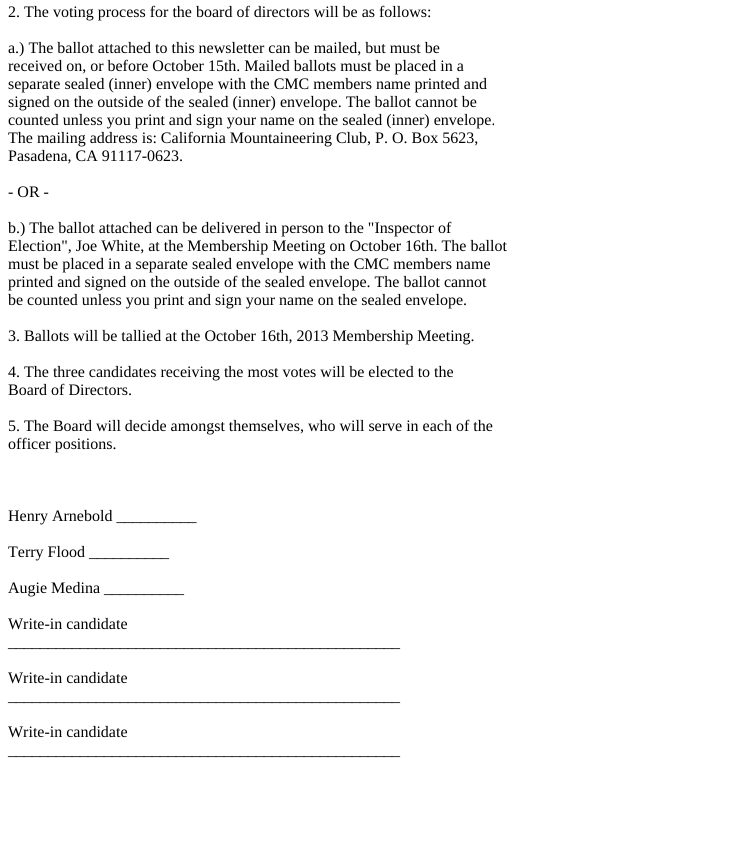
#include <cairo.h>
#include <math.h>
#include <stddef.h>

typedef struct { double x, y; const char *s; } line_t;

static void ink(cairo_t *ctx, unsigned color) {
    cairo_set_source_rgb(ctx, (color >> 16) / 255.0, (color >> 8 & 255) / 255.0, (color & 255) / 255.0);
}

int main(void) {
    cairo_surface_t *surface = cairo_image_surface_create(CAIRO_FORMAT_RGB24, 731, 856);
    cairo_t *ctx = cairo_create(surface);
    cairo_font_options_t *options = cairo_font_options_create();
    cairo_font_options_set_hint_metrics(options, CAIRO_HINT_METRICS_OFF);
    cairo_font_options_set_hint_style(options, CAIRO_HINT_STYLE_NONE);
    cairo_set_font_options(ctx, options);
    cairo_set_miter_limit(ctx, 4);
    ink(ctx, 0xFFFFFF);
    cairo_paint(ctx);
    cairo_select_font_face(ctx, "Liberation Serif", CAIRO_FONT_SLANT_NORMAL, CAIRO_FONT_WEIGHT_NORMAL);
    cairo_set_font_size(ctx, 16);
    ink(ctx, 0x000000);
    {
        static const line_t items[] = {
            {8, 17, "2. The voting process for the board of directors will be as follows:"},
            {8, 53, "a.) The ballot attached to this newsletter can be mailed, but must be"},
            {8, 71, "received on, or before October 15th. Mailed ballots must be placed in a"},
            {8, 89, "separate sealed (inner) envelope with the CMC members name printed and"},
            {8, 107, "signed on the outside of the sealed (inner) envelope. The ballot cannot be"},
            {8, 125, "counted unless you print and sign your name on the sealed (inner) envelope."},
            {8, 143, "The mailing address is: California Mountaineering Club, P. O. Box 5623,"},
            {8, 161, "Pasadena, CA 91117-0623."},
            {8, 197, "- OR -"},
            {8, 233, "b.) The ballot attached can be delivered in person to the \"Inspector of"},
            {8, 251, "Election\", Joe White, at the Membership Meeting on October 16th. The ballot"},
            {8, 269, "must be placed in a separate sealed envelope with the CMC members name"},
            {8, 287, "printed and signed on the outside of the sealed envelope. The ballot cannot"},
            {8, 305, "be counted unless you print and sign your name on the sealed envelope."},
            {8, 341, "3. Ballots will be tallied at the October 16th, 2013 Membership Meeting."},
            {8, 377, "4. The three candidates receiving the most votes will be elected to the"},
            {8, 395, "Board of Directors."},
            {8, 431, "5. The Board will decide amongst themselves, who will serve in each of the"},
            {8, 449, "officer positions."},
            {8, 521, "Henry Arnebold __________"},
            {8, 557, "Terry Flood __________"},
            {8, 593, "Augie Medina __________"},
            {8, 629, "Write-in candidate"},
            {8, 647, "_________________________________________________"},
            {8, 683, "Write-in candidate"},
            {8, 701, "_________________________________________________"},
            {8, 737, "Write-in candidate"},
            {8, 755, "_________________________________________________"},
        };
        for (size_t i = 0; i < sizeof items / sizeof *items; i++) {
            cairo_move_to(ctx, items[i].x, items[i].y);
            cairo_show_text(ctx, items[i].s);
        }
    }
    cairo_surface_write_to_png(surface, "image.png");
    cairo_font_options_destroy(options);
    cairo_destroy(ctx);
    cairo_surface_destroy(surface);
    return 0;
}
